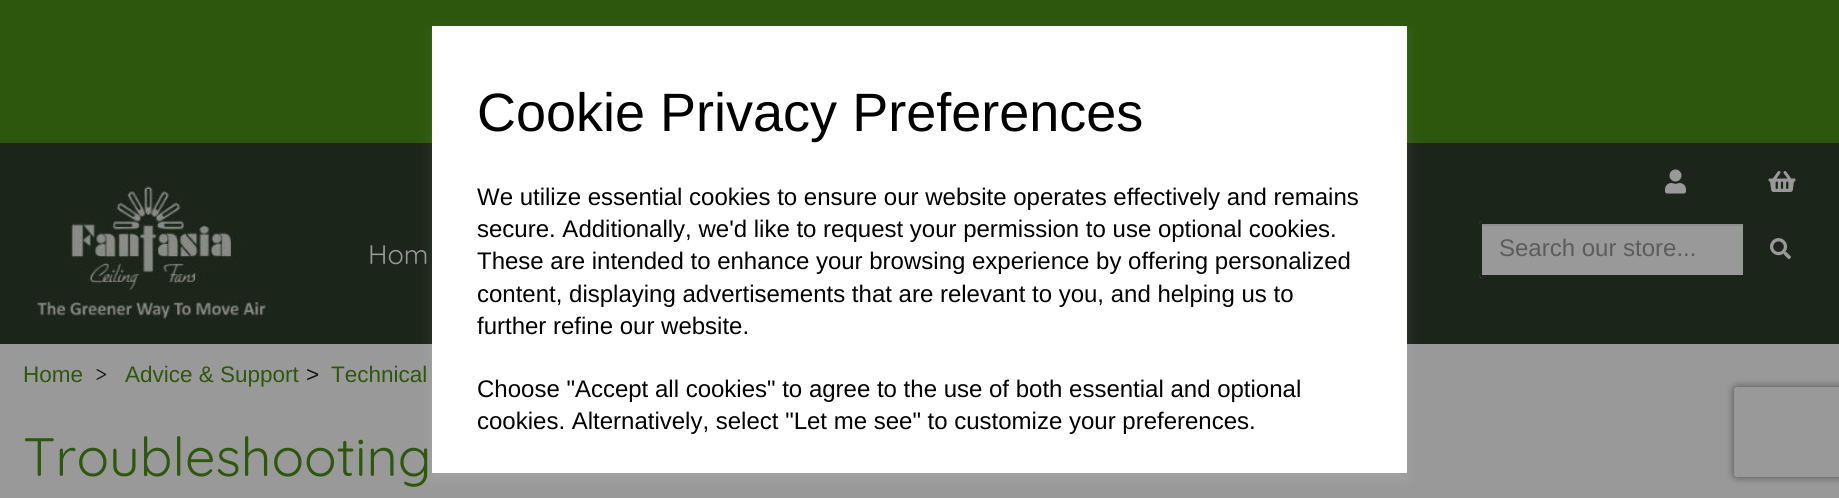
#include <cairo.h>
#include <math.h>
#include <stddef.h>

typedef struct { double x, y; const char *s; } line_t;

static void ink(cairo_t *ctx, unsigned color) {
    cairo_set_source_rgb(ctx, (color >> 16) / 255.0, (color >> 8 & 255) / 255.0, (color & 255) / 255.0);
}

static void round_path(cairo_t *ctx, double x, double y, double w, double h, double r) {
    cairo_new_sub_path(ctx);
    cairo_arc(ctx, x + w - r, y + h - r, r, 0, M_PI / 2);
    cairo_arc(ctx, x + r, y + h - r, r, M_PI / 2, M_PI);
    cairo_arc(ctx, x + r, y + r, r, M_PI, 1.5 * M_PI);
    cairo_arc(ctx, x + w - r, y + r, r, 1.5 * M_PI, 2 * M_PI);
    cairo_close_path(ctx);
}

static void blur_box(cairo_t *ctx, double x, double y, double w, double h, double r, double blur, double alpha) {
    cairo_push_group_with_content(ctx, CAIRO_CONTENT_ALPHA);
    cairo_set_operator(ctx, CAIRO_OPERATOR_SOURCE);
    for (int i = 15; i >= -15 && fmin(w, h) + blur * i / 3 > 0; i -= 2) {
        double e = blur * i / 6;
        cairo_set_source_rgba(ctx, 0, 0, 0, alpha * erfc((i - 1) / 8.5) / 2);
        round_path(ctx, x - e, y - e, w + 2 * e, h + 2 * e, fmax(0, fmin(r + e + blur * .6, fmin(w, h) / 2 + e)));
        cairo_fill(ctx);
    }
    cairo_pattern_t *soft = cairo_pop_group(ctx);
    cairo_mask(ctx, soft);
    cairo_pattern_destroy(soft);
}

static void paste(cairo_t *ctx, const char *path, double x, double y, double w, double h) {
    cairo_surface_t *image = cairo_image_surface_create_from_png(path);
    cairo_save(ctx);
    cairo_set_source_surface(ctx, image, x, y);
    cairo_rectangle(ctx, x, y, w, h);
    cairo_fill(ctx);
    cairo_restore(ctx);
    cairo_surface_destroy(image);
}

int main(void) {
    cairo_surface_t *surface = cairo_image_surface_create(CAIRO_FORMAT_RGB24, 1839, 498);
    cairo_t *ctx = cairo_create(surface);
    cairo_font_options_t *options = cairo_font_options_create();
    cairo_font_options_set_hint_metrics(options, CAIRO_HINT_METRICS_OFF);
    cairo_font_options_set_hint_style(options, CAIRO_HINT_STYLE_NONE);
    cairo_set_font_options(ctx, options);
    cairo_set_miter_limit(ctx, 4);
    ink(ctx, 0x999999);
    cairo_paint(ctx);
    ink(ctx, 0x2C570C);
    cairo_rectangle(ctx, 0, 0, 1839, 143);
    cairo_fill(ctx);
    ink(ctx, 0x1C251A);
    cairo_rectangle(ctx, 0, 143, 1839, 201);
    cairo_fill(ctx);
    ink(ctx, 0xFFFFFF);
    blur_box(ctx, 432, 32, 975, 447, 0, 6, 0.1);
    ink(ctx, 0xFFFFFF);
    cairo_rectangle(ctx, 432, 26, 975, 447);
    cairo_fill(ctx);
    cairo_select_font_face(ctx, "Liberation Sans", CAIRO_FONT_SLANT_NORMAL, CAIRO_FONT_WEIGHT_NORMAL);
    cairo_set_font_size(ctx, 54);
    ink(ctx, 0x000000);
    cairo_move_to(ctx, 477, 131);
    cairo_show_text(ctx, "Cookie Privacy Preferences");
    cairo_set_font_size(ctx, 24);
    {
        static const line_t items[] = {
            {477, 205, "We utilize essential cookies to ensure our website operates effectively and remains"},
            {477, 237, "secure. Additionally, we'd like to request your permission to use optional cookies."},
            {477, 269, "These are intended to enhance your browsing experience by offering personalized"},
            {477, 302, "content, displaying advertisements that are relevant to you, and helping us to"},
            {477, 334, "further refine our website."},
            {477, 397, "Choose \"Accept all cookies\" to agree to the use of both essential and optional"},
            {477, 429, "cookies. Alternatively, select \"Let me see\" to customize your preferences."},
        };
        for (size_t i = 0; i < sizeof items / sizeof *items; i++) {
            cairo_move_to(ctx, items[i].x, items[i].y);
            cairo_show_text(ctx, items[i].s);
        }
    }
    paste(ctx, "media/1.png", 33, 184, 239, 135);
    paste(ctx, "media/2.png", 1665, 169, 21, 25);
    paste(ctx, "media/3.png", 1768, 171, 28, 21);
    cairo_select_font_face(ctx, "Quicksand", CAIRO_FONT_SLANT_NORMAL, CAIRO_FONT_WEIGHT_NORMAL);
    cairo_set_font_size(ctx, 27);
    ink(ctx, 0x999999);
    cairo_move_to(ctx, 368, 264);
    cairo_show_text(ctx, "Hom");
    cairo_new_path(ctx);
    cairo_move_to(ctx, 1482, 221);
    cairo_line_to(ctx, 1746, 221);
    cairo_line_to(ctx, 1746, 278);
    cairo_line_to(ctx, 1482, 278);
    cairo_curve_to(ctx, 1480.5, 278, 1479, 276.5, 1479, 275);
    cairo_line_to(ctx, 1479, 224);
    cairo_curve_to(ctx, 1479, 222.5, 1480.5, 221, 1482, 221);
    cairo_close_path(ctx);
    cairo_fill(ctx);
    ink(ctx, 0x8E8E8E);
    cairo_rectangle(ctx, 1482, 224, 261, 2);
    cairo_fill(ctx);
    cairo_new_path(ctx);
    cairo_move_to(ctx, 1482, 222.5);
    cairo_line_to(ctx, 1744.5, 222.5);
    cairo_line_to(ctx, 1744.5, 276.5);
    cairo_line_to(ctx, 1482, 276.5);
    cairo_curve_to(ctx, 1481, 276.5, 1480.5, 276, 1480.5, 275);
    cairo_line_to(ctx, 1480.5, 224);
    cairo_curve_to(ctx, 1480.5, 223, 1481, 222.5, 1482, 222.5);
    cairo_close_path(ctx);
    ink(ctx, 0x1C251A);
    cairo_set_line_width(ctx, 3);
    cairo_stroke(ctx);
    cairo_select_font_face(ctx, "Liberation Sans", CAIRO_FONT_SLANT_NORMAL, CAIRO_FONT_WEIGHT_NORMAL);
    cairo_set_font_size(ctx, 24);
    ink(ctx, 0x5C5C5C);
    cairo_move_to(ctx, 1499, 256);
    cairo_show_text(ctx, "Search our store...");
    paste(ctx, "media/4.png", 1770, 238, 21, 22);
    cairo_set_font_size(ctx, 22.5);
    ink(ctx, 0x2C570C);
    cairo_move_to(ctx, 23, 382);
    cairo_show_text(ctx, "Home");
    cairo_select_font_face(ctx, "Quicksand", CAIRO_FONT_SLANT_NORMAL, CAIRO_FONT_WEIGHT_NORMAL);
    ink(ctx, 0x161616);
    cairo_move_to(ctx, 95, 382);
    cairo_show_text(ctx, ">");
    cairo_select_font_face(ctx, "Liberation Sans", CAIRO_FONT_SLANT_NORMAL, CAIRO_FONT_WEIGHT_NORMAL);
    ink(ctx, 0x2C570C);
    cairo_move_to(ctx, 125, 382);
    cairo_show_text(ctx, "Advice & Support");
    ink(ctx, 0x161616);
    cairo_move_to(ctx, 306, 382);
    cairo_show_text(ctx, ">");
    ink(ctx, 0x2C570C);
    cairo_move_to(ctx, 331, 382);
    cairo_show_text(ctx, "Technical");
    cairo_select_font_face(ctx, "Quicksand", CAIRO_FONT_SLANT_NORMAL, CAIRO_FONT_WEIGHT_NORMAL);
    cairo_set_font_size(ctx, 54);
    cairo_move_to(ctx, 23, 476);
    cairo_show_text(ctx, "Troubleshooting");
    cairo_save(ctx);
    cairo_set_fill_rule(ctx, CAIRO_FILL_RULE_EVEN_ODD);
    cairo_new_path(ctx);
    cairo_move_to(ctx, 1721, 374);
    cairo_line_to(ctx, 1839, 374);
    cairo_line_to(ctx, 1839, 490);
    cairo_line_to(ctx, 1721, 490);
    cairo_close_path(ctx);
    cairo_move_to(ctx, 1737, 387);
    cairo_line_to(ctx, 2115, 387);
    cairo_curve_to(ctx, 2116.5, 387, 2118, 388.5, 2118, 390);
    cairo_line_to(ctx, 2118, 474);
    cairo_curve_to(ctx, 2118, 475.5, 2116.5, 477, 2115, 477);
    cairo_line_to(ctx, 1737, 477);
    cairo_curve_to(ctx, 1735.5, 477, 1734, 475.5, 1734, 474);
    cairo_line_to(ctx, 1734, 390);
    cairo_curve_to(ctx, 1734, 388.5, 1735.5, 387, 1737, 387);
    cairo_close_path(ctx);
    cairo_clip(ctx);
    ink(ctx, 0x4D4D4D);
    blur_box(ctx, 1734, 387, 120, 90, 3, 4, 1);
    cairo_restore(ctx);
    cairo_surface_write_to_png(surface, "image.png");
    cairo_font_options_destroy(options);
    cairo_destroy(ctx);
    cairo_surface_destroy(surface);
    return 0;
}
